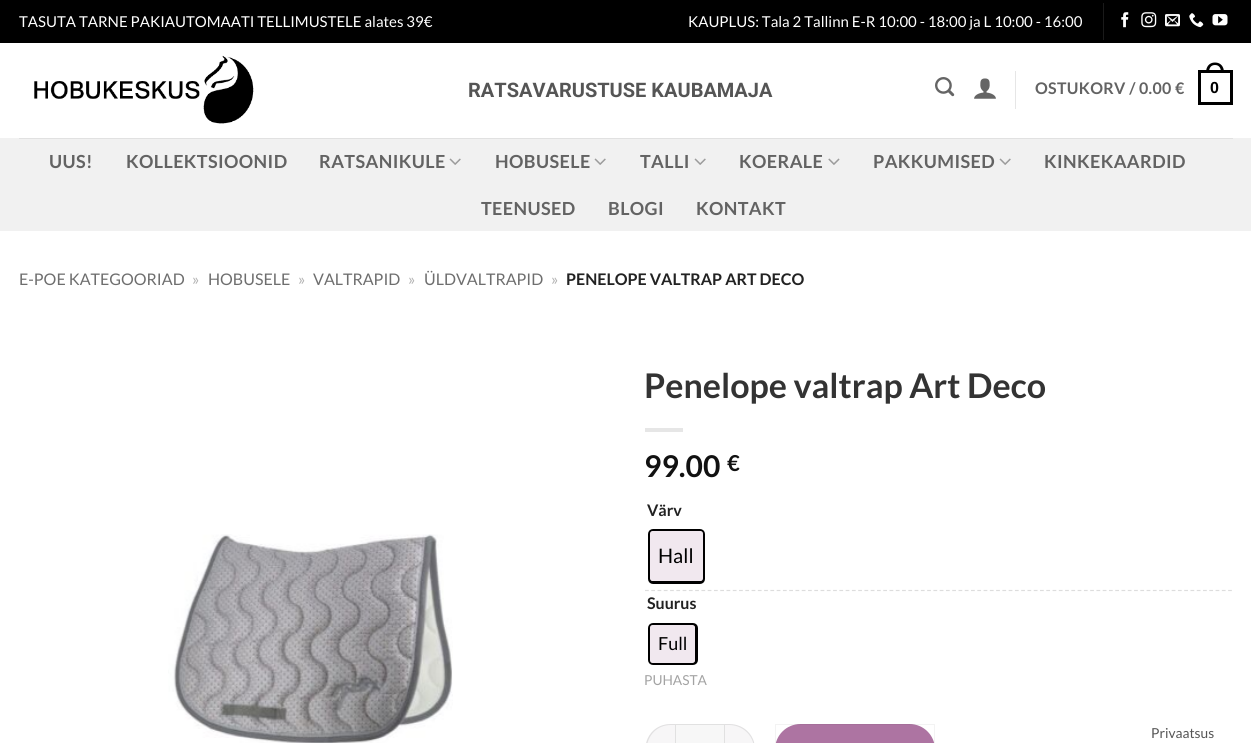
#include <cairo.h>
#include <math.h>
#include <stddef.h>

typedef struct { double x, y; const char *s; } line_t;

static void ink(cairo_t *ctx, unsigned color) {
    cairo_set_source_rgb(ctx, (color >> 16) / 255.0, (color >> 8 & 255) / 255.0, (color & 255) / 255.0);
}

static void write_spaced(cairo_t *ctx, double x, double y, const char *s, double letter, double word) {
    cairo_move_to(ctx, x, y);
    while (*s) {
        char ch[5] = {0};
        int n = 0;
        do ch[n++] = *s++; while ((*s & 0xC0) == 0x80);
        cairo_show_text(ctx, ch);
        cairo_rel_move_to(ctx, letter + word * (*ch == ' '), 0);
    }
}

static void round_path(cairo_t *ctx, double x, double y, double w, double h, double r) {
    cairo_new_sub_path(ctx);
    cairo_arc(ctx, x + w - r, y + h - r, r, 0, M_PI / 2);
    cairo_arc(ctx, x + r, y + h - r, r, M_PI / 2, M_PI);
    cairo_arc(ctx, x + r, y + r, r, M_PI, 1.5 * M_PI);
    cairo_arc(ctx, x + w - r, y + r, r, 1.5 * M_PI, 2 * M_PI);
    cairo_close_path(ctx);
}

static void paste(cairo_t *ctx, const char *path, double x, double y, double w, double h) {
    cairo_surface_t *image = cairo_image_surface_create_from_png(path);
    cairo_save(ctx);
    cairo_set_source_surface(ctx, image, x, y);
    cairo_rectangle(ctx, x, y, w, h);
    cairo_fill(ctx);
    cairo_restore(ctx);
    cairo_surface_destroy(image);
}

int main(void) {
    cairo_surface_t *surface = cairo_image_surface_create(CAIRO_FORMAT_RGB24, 1251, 743);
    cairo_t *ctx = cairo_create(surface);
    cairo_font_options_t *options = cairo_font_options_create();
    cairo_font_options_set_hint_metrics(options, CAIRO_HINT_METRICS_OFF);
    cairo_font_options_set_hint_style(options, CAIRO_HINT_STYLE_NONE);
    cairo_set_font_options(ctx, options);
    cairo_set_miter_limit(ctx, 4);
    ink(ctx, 0xFFFFFF);
    cairo_paint(ctx);
    ink(ctx, 0x000000);
    cairo_rectangle(ctx, 0, 0, 1251, 43);
    cairo_fill(ctx);
    cairo_select_font_face(ctx, "Lato", CAIRO_FONT_SLANT_NORMAL, CAIRO_FONT_WEIGHT_NORMAL);
    cairo_set_font_size(ctx, 15);
    ink(ctx, 0xFFFFFF);
    cairo_move_to(ctx, 19, 27);
    cairo_show_text(ctx, "TASUTA TARNE PAKIAUTOMAATI TELLIMUSTELE alates 39€");
    cairo_move_to(ctx, 688, 27);
    cairo_show_text(ctx, "KAUPLUS: Tala 2 Tallinn E-R 10:00 - 18:00 ja L 10:00 - 16:00");
    ink(ctx, 0x1A1A1A);
    cairo_rectangle(ctx, 1103, 3, 1, 37);
    cairo_fill(ctx);
    paste(ctx, "media/1.png", 1121, 12, 8, 16);
    paste(ctx, "media/2.png", 1141, 12, 16, 16);
    paste(ctx, "media/3.png", 1165, 14, 15, 13);
    paste(ctx, "media/4.png", 1189, 13, 15, 15);
    paste(ctx, "media/5.png", 1212, 14, 16, 12);
    paste(ctx, "media/6.png", 34, 55, 220, 69);
    cairo_select_font_face(ctx, "Roboto", CAIRO_FONT_SLANT_NORMAL, CAIRO_FONT_WEIGHT_BOLD);
    cairo_set_font_size(ctx, 20);
    ink(ctx, 0x555555);
    cairo_move_to(ctx, 468, 97);
    cairo_show_text(ctx, "RATSAVARUSTUSE KAUBAMAJA");
    paste(ctx, "media/7.png", 935, 77, 20, 20);
    paste(ctx, "media/8.png", 974, 78, 22, 21);
    ink(ctx, 0xE6E6E6);
    cairo_rectangle(ctx, 1015, 71, 1, 38);
    cairo_fill(ctx);
    cairo_select_font_face(ctx, "Lato", CAIRO_FONT_SLANT_NORMAL, CAIRO_FONT_WEIGHT_BOLD);
    cairo_set_font_size(ctx, 16);
    ink(ctx, 0x636363);
    write_spaced(ctx, 1035, 94, "OSTUKORV / 0.00 €", 0.3, 0);
    cairo_rectangle(ctx, 1199.5, 71.5, 32, 32);
    ink(ctx, 0x000000);
    cairo_set_line_width(ctx, 3);
    cairo_stroke(ctx);
    cairo_set_fill_rule(ctx, CAIRO_FILL_RULE_EVEN_ODD);
    cairo_new_path(ctx);
    cairo_move_to(ctx, 1215, 62.5);
    cairo_curve_to(ctx, 1221, 62.5, 1224, 67, 1224, 72.5);
    cairo_line_to(ctx, 1206, 72.5);
    cairo_curve_to(ctx, 1206, 67, 1209, 62.5, 1215, 62.5);
    cairo_close_path(ctx);
    cairo_move_to(ctx, 1215, 65);
    cairo_curve_to(ctx, 1219.5, 65, 1221, 68.5, 1221, 72.5);
    cairo_line_to(ctx, 1209, 72.5);
    cairo_curve_to(ctx, 1209, 68.5, 1210.5, 65, 1215, 65);
    cairo_close_path(ctx);
    cairo_fill(ctx);
    cairo_select_font_face(ctx, "Liberation Sans", CAIRO_FONT_SLANT_NORMAL, CAIRO_FONT_WEIGHT_BOLD);
    write_spaced(ctx, 1210, 93, "0", 0.3, 0);
    ink(ctx, 0xF1F1F1);
    cairo_rectangle(ctx, 0, 138, 1251, 93);
    cairo_fill(ctx);
    ink(ctx, 0xE1E1E1);
    cairo_rectangle(ctx, 19, 138, 1214, 1);
    cairo_fill(ctx);
    cairo_select_font_face(ctx, "Lato", CAIRO_FONT_SLANT_NORMAL, CAIRO_FONT_WEIGHT_BOLD);
    cairo_set_font_size(ctx, 18);
    ink(ctx, 0x636363);
    {
        static const line_t items[] = {
            {49, 168, "UUS!"},
            {126, 168, "KOLLEKTSIOONID"},
            {319, 168, "RATSANIKULE"},
        };
        for (size_t i = 0; i < sizeof items / sizeof *items; i++) {
            write_spaced(ctx, items[i].x, items[i].y, items[i].s, 0.4, 0);
        }
    }
    paste(ctx, "media/9.png", 449, 158, 12, 7);
    write_spaced(ctx, 495, 168, "HOBUSELE", 0.4, 0);
    paste(ctx, "media/9.png", 594, 158, 12, 7);
    write_spaced(ctx, 640, 168, "TALLI", 0.4, 0);
    paste(ctx, "media/9.png", 694, 158, 12, 7);
    write_spaced(ctx, 739, 168, "KOERALE", 0.4, 0);
    paste(ctx, "media/10.png", 828, 158, 12, 7);
    write_spaced(ctx, 873, 168, "PAKKUMISED", 0.4, 0);
    paste(ctx, "media/9.png", 999, 158, 12, 7);
    {
        static const line_t items[] = {
            {1044, 168, "KINKEKAARDID"},
            {481, 215, "TEENUSED"},
            {608, 215, "BLOGI"},
            {696, 215, "KONTAKT"},
        };
        for (size_t i = 0; i < sizeof items / sizeof *items; i++) {
            write_spaced(ctx, items[i].x, items[i].y, items[i].s, 0.4, 0);
        }
    }
    cairo_select_font_face(ctx, "Lato", CAIRO_FONT_SLANT_NORMAL, CAIRO_FONT_WEIGHT_NORMAL);
    cairo_set_font_size(ctx, 16);
    ink(ctx, 0x6E6E6E);
    cairo_move_to(ctx, 19, 285);
    cairo_show_text(ctx, "E-POE KATEGOORIAD");
    ink(ctx, 0xB2B2B2);
    cairo_move_to(ctx, 192, 285);
    cairo_show_text(ctx, "»");
    ink(ctx, 0x6E6E6E);
    cairo_move_to(ctx, 208, 285);
    cairo_show_text(ctx, "HOBUSELE");
    ink(ctx, 0xB2B2B2);
    cairo_move_to(ctx, 298, 285);
    cairo_show_text(ctx, "»");
    ink(ctx, 0x6E6E6E);
    cairo_move_to(ctx, 313, 285);
    cairo_show_text(ctx, "VALTRAPID");
    ink(ctx, 0xB2B2B2);
    cairo_move_to(ctx, 408, 285);
    cairo_show_text(ctx, "»");
    ink(ctx, 0x6E6E6E);
    cairo_move_to(ctx, 424, 285);
    cairo_show_text(ctx, "ÜLDVALTRAPID");
    ink(ctx, 0xB2B2B2);
    cairo_move_to(ctx, 551, 285);
    cairo_show_text(ctx, "»");
    cairo_select_font_face(ctx, "Lato", CAIRO_FONT_SLANT_NORMAL, CAIRO_FONT_WEIGHT_BOLD);
    ink(ctx, 0x222222);
    cairo_move_to(ctx, 566, 285);
    cairo_show_text(ctx, "PENELOPE VALTRAP ART DECO");
    paste(ctx, "media/11.png", 168, 534, 285, 209);
    cairo_set_font_size(ctx, 34);
    ink(ctx, 0x333333);
    cairo_move_to(ctx, 644, 398);
    cairo_show_text(ctx, "Penelope valtrap Art Deco");
    ink(ctx, 0xE6E6E6);
    cairo_rectangle(ctx, 645, 428, 38, 4);
    cairo_fill(ctx);
    cairo_set_font_size(ctx, 30);
    ink(ctx, 0x111111);
    cairo_move_to(ctx, 644, 477);
    cairo_show_text(ctx, "99.00");
    cairo_set_font_size(ctx, 22);
    cairo_move_to(ctx, 727, 471);
    cairo_show_text(ctx, "€");
    cairo_set_font_size(ctx, 16);
    ink(ctx, 0x222222);
    cairo_move_to(ctx, 647, 516);
    cairo_show_text(ctx, "Värv");
    round_path(ctx, 649.5, 530.5, 54, 52, 3.5);
    ink(ctx, 0x000000);
    cairo_stroke(ctx);
    ink(ctx, 0xF1E8EF);
    round_path(ctx, 650, 531, 53, 50, 2.5);
    cairo_fill(ctx);
    cairo_select_font_face(ctx, "Lato", CAIRO_FONT_SLANT_NORMAL, CAIRO_FONT_WEIGHT_NORMAL);
    cairo_set_font_size(ctx, 20);
    ink(ctx, 0x000000);
    cairo_move_to(ctx, 658, 563);
    cairo_show_text(ctx, "Hall");
    cairo_new_path(ctx);
    cairo_move_to(ctx, 645, 590.5);
    cairo_line_to(ctx, 1232.5, 590.5);
    ink(ctx, 0xDDDDDD);
    cairo_set_line_width(ctx, 1.2);
    cairo_set_dash(ctx, (double[]){3.75, 2.52}, 2, 0);
    cairo_stroke(ctx);
    cairo_select_font_face(ctx, "Lato", CAIRO_FONT_SLANT_NORMAL, CAIRO_FONT_WEIGHT_BOLD);
    cairo_set_font_size(ctx, 16);
    ink(ctx, 0x222222);
    cairo_move_to(ctx, 647, 609);
    cairo_show_text(ctx, "Suurus");
    round_path(ctx, 649.5, 624.5, 47, 39, 3.5);
    ink(ctx, 0x000000);
    cairo_set_line_width(ctx, 3);
    cairo_set_dash(ctx, NULL, 0, 0);
    cairo_stroke(ctx);
    ink(ctx, 0xF1E8EF);
    round_path(ctx, 650, 625, 45, 38, 2.5);
    cairo_fill(ctx);
    cairo_select_font_face(ctx, "Lato", CAIRO_FONT_SLANT_NORMAL, CAIRO_FONT_WEIGHT_NORMAL);
    cairo_set_font_size(ctx, 18);
    ink(ctx, 0x000000);
    cairo_move_to(ctx, 658, 650);
    cairo_show_text(ctx, "Full");
    cairo_set_font_size(ctx, 13.75);
    ink(ctx, 0xA3A3A3);
    cairo_move_to(ctx, 644, 685);
    cairo_show_text(ctx, "PUHASTA");
    ink(ctx, 0xF7F6F7);
    cairo_new_path(ctx);
    cairo_move_to(ctx, 670.5, 724);
    cairo_line_to(ctx, 675, 724);
    cairo_line_to(ctx, 675, 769);
    cairo_line_to(ctx, 670.5, 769);
    cairo_curve_to(ctx, 656.5, 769, 645, 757.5, 645, 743.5);
    cairo_line_to(ctx, 645, 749.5);
    cairo_curve_to(ctx, 645, 735.5, 656.5, 724, 670.5, 724);
    cairo_close_path(ctx);
    cairo_fill(ctx);
    cairo_set_source_rgba(ctx, 0, 0, 0, 0.09);
    cairo_new_path(ctx);
    cairo_move_to(ctx, 671, 724);
    cairo_line_to(ctx, 675, 724);
    cairo_line_to(ctx, 675, 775);
    cairo_line_to(ctx, 665, 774);
    cairo_curve_to(ctx, 636, 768, 640, 724, 671, 724);
    cairo_close_path(ctx);
    cairo_move_to(ctx, 671, 725);
    cairo_line_to(ctx, 675, 725);
    cairo_line_to(ctx, 675, 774);
    cairo_line_to(ctx, 666, 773);
    cairo_curve_to(ctx, 637, 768, 642, 725, 671, 725);
    cairo_close_path(ctx);
    cairo_fill(ctx);
    ink(ctx, 0xF7F7F7);
    cairo_rectangle(ctx, 675.5, 724.5, 49, 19);
    cairo_fill_preserve(ctx);
    ink(ctx, 0xE1E1E1);
    cairo_set_line_width(ctx, 1);
    cairo_stroke(ctx);
    ink(ctx, 0xF7F6F7);
    cairo_new_path(ctx);
    cairo_move_to(ctx, 725, 724);
    cairo_line_to(ctx, 729.5, 724);
    cairo_curve_to(ctx, 743.5, 724, 755, 735.5, 755, 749.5);
    cairo_line_to(ctx, 755, 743.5);
    cairo_curve_to(ctx, 755, 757.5, 743.5, 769, 729.5, 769);
    cairo_line_to(ctx, 725, 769);
    cairo_close_path(ctx);
    cairo_fill(ctx);
    cairo_set_source_rgba(ctx, 0, 0, 0, 0.09);
    cairo_new_path(ctx);
    cairo_move_to(ctx, 725, 724);
    cairo_line_to(ctx, 729, 724);
    cairo_curve_to(ctx, 744, 724, 755, 735, 755, 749);
    cairo_curve_to(ctx, 755, 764, 744, 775, 729, 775);
    cairo_line_to(ctx, 725, 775);
    cairo_close_path(ctx);
    cairo_move_to(ctx, 725, 725);
    cairo_line_to(ctx, 729, 725);
    cairo_curve_to(ctx, 743, 725, 754, 736, 754, 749);
    cairo_curve_to(ctx, 754, 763, 743, 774, 729, 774);
    cairo_line_to(ctx, 725, 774);
    cairo_close_path(ctx);
    cairo_fill(ctx);
    ink(ctx, 0xAD74A2);
    round_path(ctx, 775, 724, 160, 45, 25.5);
    cairo_fill(ctx);
    cairo_rectangle(ctx, 775.5, 724.5, 159, 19);
    cairo_set_source_rgba(ctx, 0, 0, 0, 0.05);
    cairo_stroke(ctx);
    ink(ctx, 0x555555);
    cairo_move_to(ctx, 1151, 738);
    cairo_show_text(ctx, "Privaatsus");
    cairo_surface_write_to_png(surface, "image.png");
    cairo_font_options_destroy(options);
    cairo_destroy(ctx);
    cairo_surface_destroy(surface);
    return 0;
}
